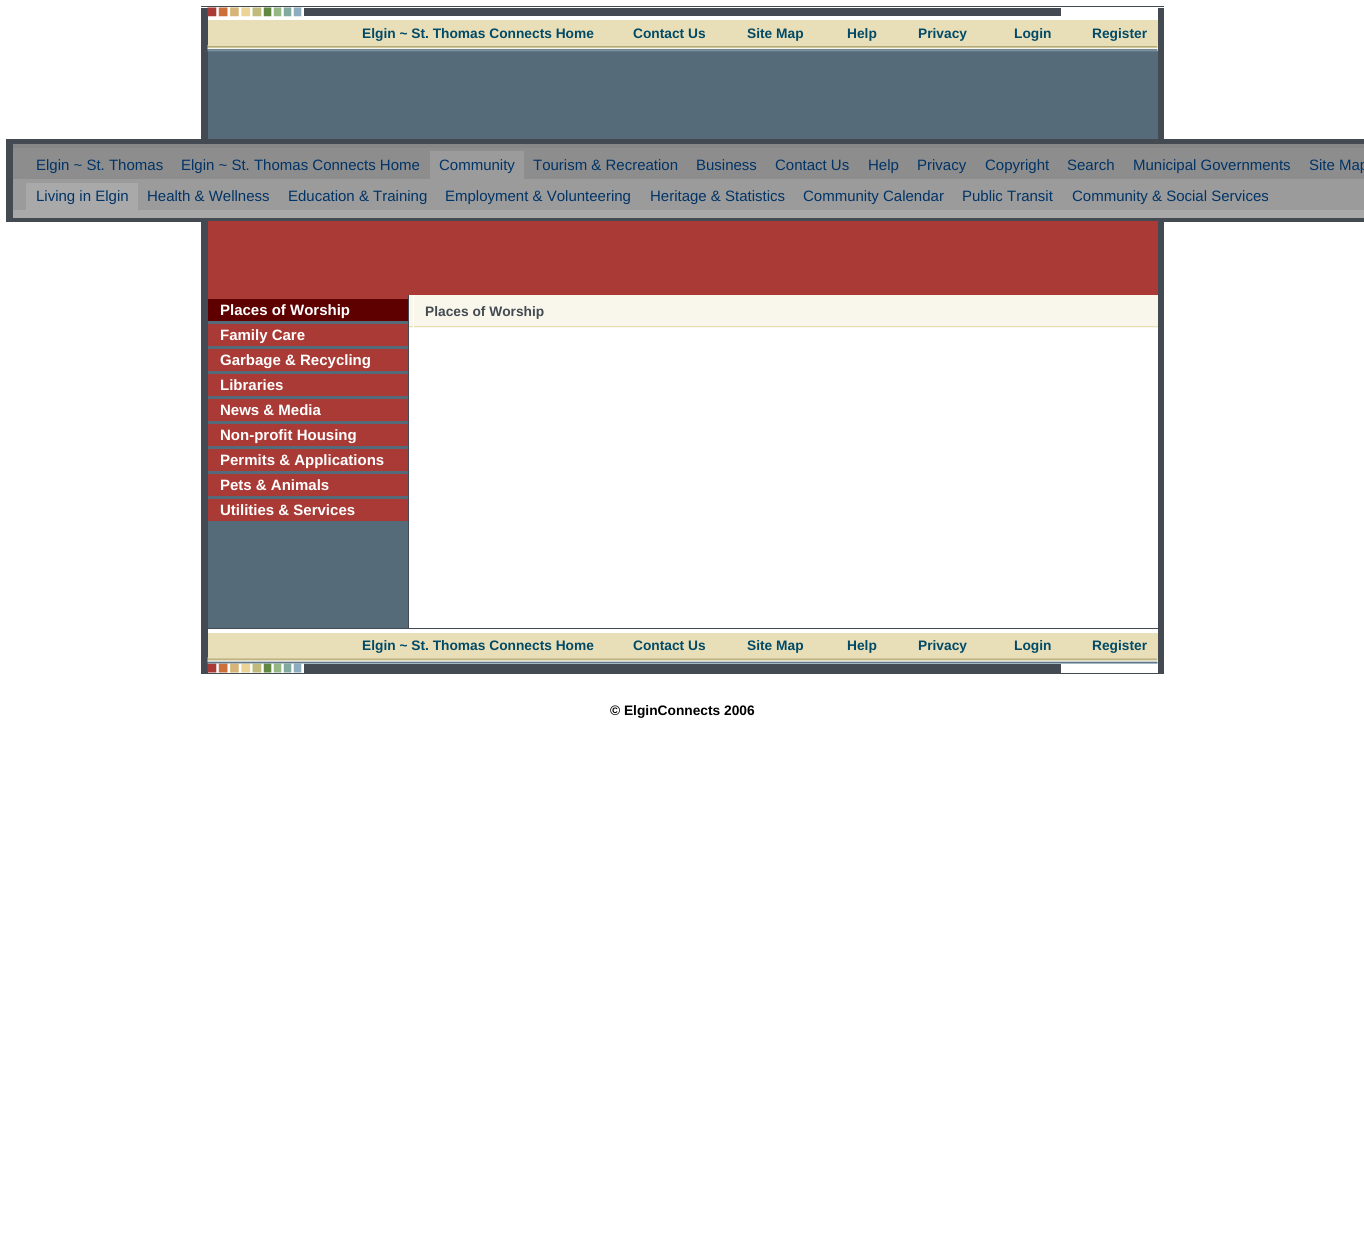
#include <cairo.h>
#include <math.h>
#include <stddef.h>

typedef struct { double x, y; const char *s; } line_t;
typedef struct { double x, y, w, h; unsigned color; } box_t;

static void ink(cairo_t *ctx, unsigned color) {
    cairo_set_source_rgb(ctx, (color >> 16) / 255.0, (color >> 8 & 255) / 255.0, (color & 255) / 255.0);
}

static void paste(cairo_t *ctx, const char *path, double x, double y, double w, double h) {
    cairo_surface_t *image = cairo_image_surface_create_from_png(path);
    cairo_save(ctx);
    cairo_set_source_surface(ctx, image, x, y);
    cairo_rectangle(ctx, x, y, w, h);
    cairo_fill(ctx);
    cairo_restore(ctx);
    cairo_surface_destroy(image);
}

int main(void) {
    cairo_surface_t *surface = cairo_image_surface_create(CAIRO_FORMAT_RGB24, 1364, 1237);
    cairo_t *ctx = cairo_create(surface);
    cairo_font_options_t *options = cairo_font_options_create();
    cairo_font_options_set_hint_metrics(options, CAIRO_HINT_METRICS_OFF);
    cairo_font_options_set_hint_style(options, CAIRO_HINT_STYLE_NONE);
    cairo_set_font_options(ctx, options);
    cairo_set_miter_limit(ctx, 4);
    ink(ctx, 0xFFFFFF);
    cairo_paint(ctx);
    ink(ctx, 0x434A52);
    cairo_rectangle(ctx, 201, 6, 963, 1);
    cairo_fill(ctx);
    cairo_rectangle(ctx, 201, 8, 7, 131);
    cairo_fill(ctx);
    paste(ctx, "media/1.png", 207, 7, 95, 10);
    {
        static const box_t items[] = {
            {304, 8, 757, 8, 0x434A52},
            {1158, 8, 6, 131, 0x434A52},
            {208, 20, 950, 25, 0xE8DFB8},
        };
        for (size_t i = 0; i < sizeof items / sizeof *items; i++) {
            ink(ctx, items[i].color);
            cairo_rectangle(ctx, items[i].x, items[i].y, items[i].w, items[i].h);
            cairo_fill(ctx);
        }
    }
    cairo_select_font_face(ctx, "Liberation Sans", CAIRO_FONT_SLANT_NORMAL, CAIRO_FONT_WEIGHT_BOLD);
    cairo_set_font_size(ctx, 13.75);
    ink(ctx, 0x014A67);
    {
        static const line_t items[] = {
            {362, 38, "Elgin ~ St. Thomas Connects Home"},
            {633, 38, "Contact Us"},
            {747, 38, "Site Map"},
            {847, 38, "Help"},
            {918, 38, "Privacy"},
            {1014, 38, "Login"},
            {1092, 38, "Register"},
        };
        for (size_t i = 0; i < sizeof items / sizeof *items; i++) {
            cairo_move_to(ctx, items[i].x, items[i].y);
            cairo_show_text(ctx, items[i].s);
        }
    }
    ink(ctx, 0x556B79);
    cairo_rectangle(ctx, 208, 51, 950, 88);
    cairo_fill(ctx);
    paste(ctx, "media/2.png", 207, 45, 951, 7);
    {
        static const box_t items[] = {
            {6, 139, 1358, 5, 0x434A52},
            {6, 144, 7, 78, 0x434A52},
            {13, 144, 1351, 4, 0x888787},
            {13, 148, 1351, 31, 0x8D8D8D},
        };
        for (size_t i = 0; i < sizeof items / sizeof *items; i++) {
            ink(ctx, items[i].color);
            cairo_rectangle(ctx, items[i].x, items[i].y, items[i].w, items[i].h);
            cairo_fill(ctx);
        }
    }
    cairo_select_font_face(ctx, "Liberation Sans", CAIRO_FONT_SLANT_NORMAL, CAIRO_FONT_WEIGHT_NORMAL);
    cairo_set_font_size(ctx, 15);
    ink(ctx, 0x003366);
    cairo_move_to(ctx, 36, 170);
    cairo_show_text(ctx, "Elgin ~ St. Thomas");
    cairo_move_to(ctx, 181, 170);
    cairo_show_text(ctx, "Elgin ~ St. Thomas Connects Home");
    ink(ctx, 0x9B9B9B);
    cairo_rectangle(ctx, 430, 151, 94, 28);
    cairo_fill(ctx);
    ink(ctx, 0x003366);
    {
        static const line_t items[] = {
            {439, 170, "Community"},
            {533, 170, "Tourism & Recreation"},
            {696, 170, "Business"},
            {775, 170, "Contact Us"},
            {868, 170, "Help"},
            {917, 170, "Privacy"},
            {985, 170, "Copyright"},
            {1067, 170, "Search"},
            {1133, 170, "Municipal Governments"},
            {1309, 170, "Site Map"},
        };
        for (size_t i = 0; i < sizeof items / sizeof *items; i++) {
            cairo_move_to(ctx, items[i].x, items[i].y);
            cairo_show_text(ctx, items[i].s);
        }
    }
    ink(ctx, 0x9B9B9B);
    cairo_rectangle(ctx, 13, 179, 1351, 31);
    cairo_fill(ctx);
    ink(ctx, 0xA9A9A9);
    cairo_rectangle(ctx, 26, 183, 112, 27);
    cairo_fill(ctx);
    ink(ctx, 0x003366);
    {
        static const line_t items[] = {
            {36, 201, "Living in Elgin"},
            {147, 201, "Health & Wellness"},
            {288, 201, "Education & Training"},
            {445, 201, "Employment & Volunteering"},
            {650, 201, "Heritage & Statistics"},
            {803, 201, "Community Calendar"},
            {962, 201, "Public Transit"},
            {1072, 201, "Community & Social Services"},
        };
        for (size_t i = 0; i < sizeof items / sizeof *items; i++) {
            cairo_move_to(ctx, items[i].x, items[i].y);
            cairo_show_text(ctx, items[i].s);
        }
    }
    {
        static const box_t items[] = {
            {13, 210, 1351, 8, 0xA9A9A9},
            {13, 218, 1351, 4, 0x434A52},
            {201, 221, 7, 407, 0x434A52},
            {208, 221, 950, 74, 0xA93A35},
            {1158, 221, 6, 407, 0x434A52},
            {208, 321, 200, 307, 0x556B79},
            {208, 295, 200, 4, 0xA93A35},
            {208, 299, 200, 22, 0x5E0000},
        };
        for (size_t i = 0; i < sizeof items / sizeof *items; i++) {
            ink(ctx, items[i].color);
            cairo_rectangle(ctx, items[i].x, items[i].y, items[i].w, items[i].h);
            cairo_fill(ctx);
        }
    }
    cairo_select_font_face(ctx, "Liberation Sans", CAIRO_FONT_SLANT_NORMAL, CAIRO_FONT_WEIGHT_BOLD);
    ink(ctx, 0xFFFFFF);
    cairo_move_to(ctx, 220, 315);
    cairo_show_text(ctx, "Places of Worship");
    ink(ctx, 0xA93A35);
    cairo_rectangle(ctx, 208, 324, 200, 22);
    cairo_fill(ctx);
    ink(ctx, 0xFFFFFF);
    cairo_move_to(ctx, 220, 340);
    cairo_show_text(ctx, "Family Care");
    ink(ctx, 0xA93A35);
    cairo_rectangle(ctx, 208, 349, 200, 22);
    cairo_fill(ctx);
    ink(ctx, 0xFFFFFF);
    cairo_move_to(ctx, 220, 365);
    cairo_show_text(ctx, "Garbage & Recycling");
    ink(ctx, 0xA93A35);
    cairo_rectangle(ctx, 208, 374, 200, 22);
    cairo_fill(ctx);
    ink(ctx, 0xFFFFFF);
    cairo_move_to(ctx, 220, 390);
    cairo_show_text(ctx, "Libraries");
    ink(ctx, 0xA93A35);
    cairo_rectangle(ctx, 208, 399, 200, 22);
    cairo_fill(ctx);
    ink(ctx, 0xFFFFFF);
    cairo_move_to(ctx, 220, 415);
    cairo_show_text(ctx, "News & Media");
    ink(ctx, 0xA93A35);
    cairo_rectangle(ctx, 208, 424, 200, 22);
    cairo_fill(ctx);
    ink(ctx, 0xFFFFFF);
    cairo_move_to(ctx, 220, 440);
    cairo_show_text(ctx, "Non-profit Housing");
    ink(ctx, 0xA93A35);
    cairo_rectangle(ctx, 208, 449, 200, 22);
    cairo_fill(ctx);
    ink(ctx, 0xFFFFFF);
    cairo_move_to(ctx, 220, 465);
    cairo_show_text(ctx, "Permits & Applications");
    ink(ctx, 0xA93A35);
    cairo_rectangle(ctx, 208, 474, 200, 22);
    cairo_fill(ctx);
    ink(ctx, 0xFFFFFF);
    cairo_move_to(ctx, 220, 490);
    cairo_show_text(ctx, "Pets & Animals");
    ink(ctx, 0xA93A35);
    cairo_rectangle(ctx, 208, 499, 200, 22);
    cairo_fill(ctx);
    ink(ctx, 0xFFFFFF);
    cairo_move_to(ctx, 220, 515);
    cairo_show_text(ctx, "Utilities & Services");
    {
        static const box_t items[] = {
            {408, 295, 1, 333, 0x434A52},
            {409, 295, 4, 33, 0xF9F7EC},
            {409, 326, 4, 1, 0xE7DEAF},
            {414, 295, 744, 33, 0xF9F7EC},
            {414, 326, 744, 1, 0xE7DEAF},
        };
        for (size_t i = 0; i < sizeof items / sizeof *items; i++) {
            ink(ctx, items[i].color);
            cairo_rectangle(ctx, items[i].x, items[i].y, items[i].w, items[i].h);
            cairo_fill(ctx);
        }
    }
    cairo_set_font_size(ctx, 13.75);
    ink(ctx, 0x434A52);
    cairo_move_to(ctx, 425, 316);
    cairo_show_text(ctx, "Places of Worship");
    {
        static const box_t items[] = {
            {201, 628, 963, 1, 0x434A52},
            {201, 629, 7, 44, 0x434A52},
            {1158, 629, 6, 44, 0x434A52},
            {208, 633, 950, 25, 0xE8DFB8},
        };
        for (size_t i = 0; i < sizeof items / sizeof *items; i++) {
            ink(ctx, items[i].color);
            cairo_rectangle(ctx, items[i].x, items[i].y, items[i].w, items[i].h);
            cairo_fill(ctx);
        }
    }
    ink(ctx, 0x014A67);
    {
        static const line_t items[] = {
            {362, 650, "Elgin ~ St. Thomas Connects Home"},
            {633, 650, "Contact Us"},
            {747, 650, "Site Map"},
            {847, 650, "Help"},
            {918, 650, "Privacy"},
            {1014, 650, "Login"},
            {1092, 650, "Register"},
        };
        for (size_t i = 0; i < sizeof items / sizeof *items; i++) {
            cairo_move_to(ctx, items[i].x, items[i].y);
            cairo_show_text(ctx, items[i].s);
        }
    }
    paste(ctx, "media/3.png", 207, 657, 951, 7);
    paste(ctx, "media/4.png", 207, 663, 97, 10);
    ink(ctx, 0x434A52);
    cairo_rectangle(ctx, 304, 664, 757, 9);
    cairo_fill(ctx);
    cairo_rectangle(ctx, 201, 673, 963, 1);
    cairo_fill(ctx);
    ink(ctx, 0x000000);
    cairo_move_to(ctx, 610, 715);
    cairo_show_text(ctx, "© ElginConnects 2006");
    cairo_surface_write_to_png(surface, "image.png");
    cairo_font_options_destroy(options);
    cairo_destroy(ctx);
    cairo_surface_destroy(surface);
    return 0;
}
